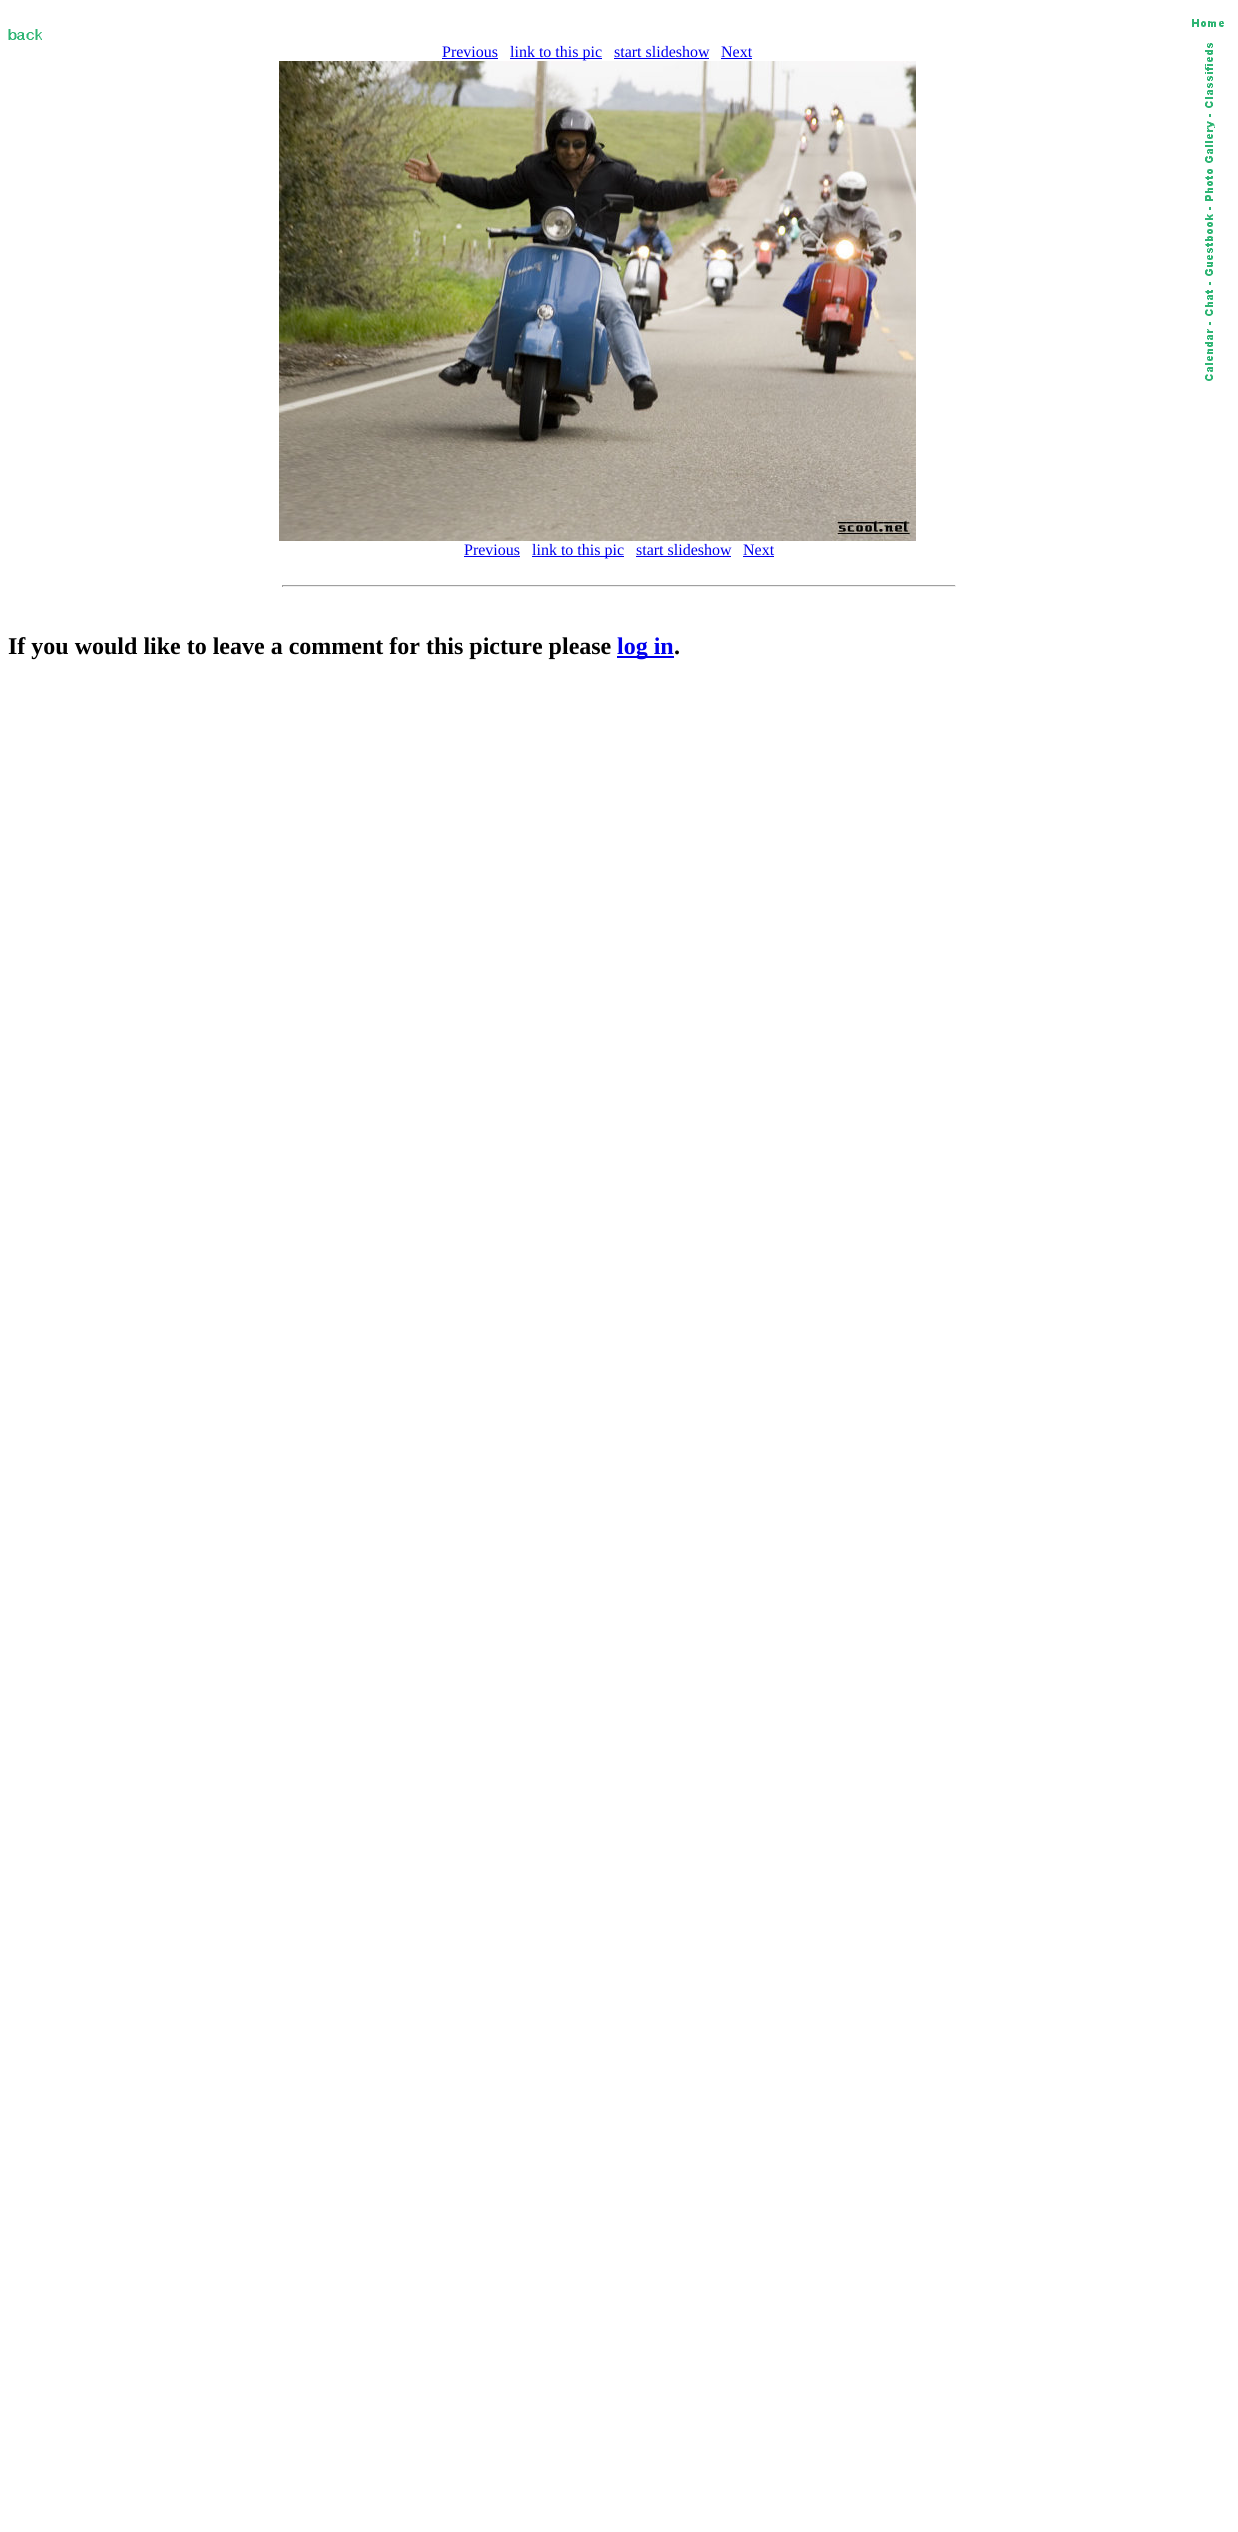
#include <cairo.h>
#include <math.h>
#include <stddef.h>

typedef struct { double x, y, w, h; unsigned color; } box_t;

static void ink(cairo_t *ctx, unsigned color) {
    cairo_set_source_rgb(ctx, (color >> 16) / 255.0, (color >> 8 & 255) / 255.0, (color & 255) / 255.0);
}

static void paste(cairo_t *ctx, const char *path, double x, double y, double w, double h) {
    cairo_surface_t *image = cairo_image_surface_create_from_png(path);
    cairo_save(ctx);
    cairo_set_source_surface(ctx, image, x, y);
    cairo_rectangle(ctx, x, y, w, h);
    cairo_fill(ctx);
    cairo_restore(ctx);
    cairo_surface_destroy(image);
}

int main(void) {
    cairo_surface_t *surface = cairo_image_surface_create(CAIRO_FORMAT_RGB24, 1238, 2532);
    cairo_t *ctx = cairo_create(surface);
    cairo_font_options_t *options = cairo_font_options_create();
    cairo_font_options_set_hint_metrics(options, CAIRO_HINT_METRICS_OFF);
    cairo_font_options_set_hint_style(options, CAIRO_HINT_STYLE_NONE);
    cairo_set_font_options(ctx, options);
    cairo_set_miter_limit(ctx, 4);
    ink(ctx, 0xFFFFFF);
    cairo_paint(ctx);
    paste(ctx, "media/1.png", 8, 29, 34, 11);
    paste(ctx, "media/2.png", 1192, 19, 32, 8);
    paste(ctx, "media/3.png", 1205, 43, 10, 338);
    cairo_select_font_face(ctx, "Liberation Serif", CAIRO_FONT_SLANT_NORMAL, CAIRO_FONT_WEIGHT_NORMAL);
    cairo_set_font_size(ctx, 16);
    ink(ctx, 0x0000EE);
    cairo_move_to(ctx, 442, 57);
    cairo_show_text(ctx, "Previous");
    cairo_rectangle(ctx, 442, 58, 56, 1);
    cairo_fill(ctx);
    cairo_rectangle(ctx, 510, 58, 92, 1);
    cairo_fill(ctx);
    cairo_move_to(ctx, 510, 57);
    cairo_show_text(ctx, "link to this pic");
    cairo_move_to(ctx, 614, 57);
    cairo_show_text(ctx, "start slideshow");
    cairo_rectangle(ctx, 614, 58, 95, 1);
    cairo_fill(ctx);
    cairo_move_to(ctx, 721, 57);
    cairo_show_text(ctx, "Next");
    cairo_rectangle(ctx, 721, 58, 31, 1);
    cairo_fill(ctx);
    paste(ctx, "media/4.png", 279, 61, 637, 480);
    cairo_move_to(ctx, 464, 555);
    cairo_show_text(ctx, "Previous");
    cairo_rectangle(ctx, 464, 556, 56, 1);
    cairo_fill(ctx);
    cairo_rectangle(ctx, 532, 556, 92, 1);
    cairo_fill(ctx);
    cairo_move_to(ctx, 532, 555);
    cairo_show_text(ctx, "link to this pic");
    cairo_move_to(ctx, 636, 555);
    cairo_show_text(ctx, "start slideshow");
    cairo_rectangle(ctx, 636, 556, 95, 1);
    cairo_fill(ctx);
    cairo_move_to(ctx, 743, 555);
    cairo_show_text(ctx, "Next");
    {
        static const box_t items[] = {
            {743, 556, 31, 1, 0x0000EE},
            {282, 585, 674, 1, 0x9F9F9F},
            {955, 585, 1, 2, 0xEEEEEE},
            {282, 586, 674, 1, 0xEEEEEE},
            {282, 585, 1, 2, 0x9F9F9F},
        };
        for (size_t i = 0; i < sizeof items / sizeof *items; i++) {
            ink(ctx, items[i].color);
            cairo_rectangle(ctx, items[i].x, items[i].y, items[i].w, items[i].h);
            cairo_fill(ctx);
        }
    }
    cairo_select_font_face(ctx, "Liberation Serif", CAIRO_FONT_SLANT_NORMAL, CAIRO_FONT_WEIGHT_BOLD);
    cairo_set_font_size(ctx, 24);
    ink(ctx, 0x000000);
    cairo_move_to(ctx, 8, 654);
    cairo_show_text(ctx, "If you would like to leave a comment for this picture please");
    ink(ctx, 0x0000EE);
    cairo_rectangle(ctx, 617, 656, 57, 2);
    cairo_fill(ctx);
    cairo_move_to(ctx, 617, 654);
    cairo_show_text(ctx, "log in");
    ink(ctx, 0x000000);
    cairo_move_to(ctx, 674, 654);
    cairo_show_text(ctx, ".");
    cairo_surface_write_to_png(surface, "image.png");
    cairo_font_options_destroy(options);
    cairo_destroy(ctx);
    cairo_surface_destroy(surface);
    return 0;
}
